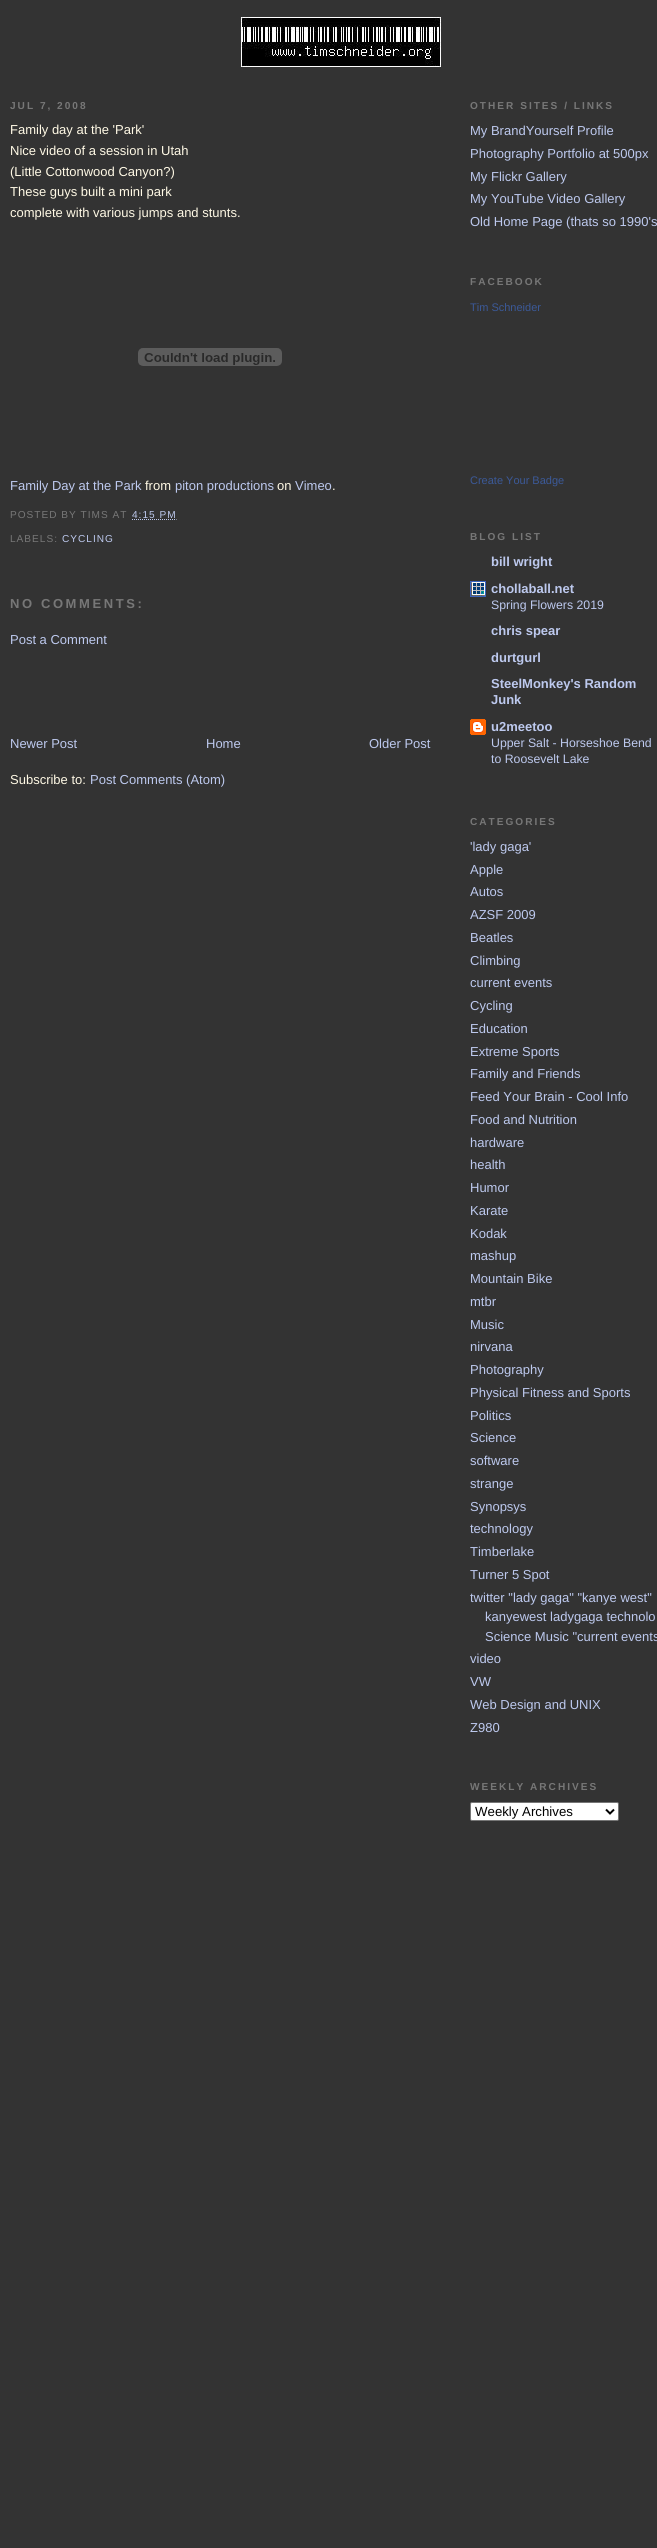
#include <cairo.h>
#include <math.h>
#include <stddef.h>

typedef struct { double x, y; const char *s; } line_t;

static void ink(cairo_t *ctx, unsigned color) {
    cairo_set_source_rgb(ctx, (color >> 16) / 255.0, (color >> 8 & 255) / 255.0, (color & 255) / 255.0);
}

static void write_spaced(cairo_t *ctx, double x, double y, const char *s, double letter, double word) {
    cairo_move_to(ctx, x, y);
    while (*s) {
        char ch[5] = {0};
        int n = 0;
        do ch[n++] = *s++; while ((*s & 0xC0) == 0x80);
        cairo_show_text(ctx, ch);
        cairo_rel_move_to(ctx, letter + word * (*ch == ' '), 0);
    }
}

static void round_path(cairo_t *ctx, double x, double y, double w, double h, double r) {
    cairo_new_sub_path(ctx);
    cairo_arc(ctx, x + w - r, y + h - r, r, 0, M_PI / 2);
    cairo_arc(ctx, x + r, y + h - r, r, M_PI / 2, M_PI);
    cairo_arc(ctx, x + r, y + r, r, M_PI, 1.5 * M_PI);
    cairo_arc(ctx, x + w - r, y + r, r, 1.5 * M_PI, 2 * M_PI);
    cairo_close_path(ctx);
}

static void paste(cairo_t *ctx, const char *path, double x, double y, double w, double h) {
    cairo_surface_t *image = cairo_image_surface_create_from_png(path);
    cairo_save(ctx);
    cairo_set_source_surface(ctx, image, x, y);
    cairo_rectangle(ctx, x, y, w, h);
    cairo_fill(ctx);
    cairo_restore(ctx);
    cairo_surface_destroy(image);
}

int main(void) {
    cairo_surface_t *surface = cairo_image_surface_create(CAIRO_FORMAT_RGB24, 657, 2548);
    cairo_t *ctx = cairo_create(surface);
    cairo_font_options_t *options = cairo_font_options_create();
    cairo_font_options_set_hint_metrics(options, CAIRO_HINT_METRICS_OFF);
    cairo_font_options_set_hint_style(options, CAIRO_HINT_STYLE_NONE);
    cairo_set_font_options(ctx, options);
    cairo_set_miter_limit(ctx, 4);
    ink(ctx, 0x333333);
    cairo_paint(ctx);
    paste(ctx, "media/1.png", 241, 17, 200, 50);
    cairo_select_font_face(ctx, "Liberation Sans", CAIRO_FONT_SLANT_NORMAL, CAIRO_FONT_WEIGHT_BOLD);
    cairo_set_font_size(ctx, 10.1);
    ink(ctx, 0x777777);
    write_spaced(ctx, 10, 109, "JUL 7, 2008", 2, 0);
    cairo_select_font_face(ctx, "Liberation Sans", CAIRO_FONT_SLANT_NORMAL, CAIRO_FONT_WEIGHT_NORMAL);
    cairo_set_font_size(ctx, 13);
    ink(ctx, 0xFFF9E5);
    {
        static const line_t items[] = {
            {10, 134, "Family day at the 'Park'"},
            {10, 155, "Nice video of a session in Utah"},
            {10, 176, "(Little Cottonwood Canyon?)"},
            {10, 196, "These guys built a mini park"},
            {10, 217, "complete with various jumps and stunts."},
        };
        for (size_t i = 0; i < sizeof items / sizeof *items; i++) {
            cairo_move_to(ctx, items[i].x, items[i].y);
            cairo_show_text(ctx, items[i].s);
        }
    }
    paste(ctx, "media/2.png", 138, 348, 144, 18);
    ink(ctx, 0xBDC9EE);
    cairo_move_to(ctx, 10, 490);
    cairo_show_text(ctx, "Family Day at the Park");
    ink(ctx, 0xFFF9E5);
    cairo_move_to(ctx, 145, 490);
    cairo_show_text(ctx, "from");
    ink(ctx, 0xBDC9EE);
    cairo_move_to(ctx, 175, 490);
    cairo_show_text(ctx, "piton productions");
    ink(ctx, 0xFFF9E5);
    cairo_move_to(ctx, 277, 490);
    cairo_show_text(ctx, "on");
    ink(ctx, 0xBDC9EE);
    cairo_move_to(ctx, 295, 490);
    cairo_show_text(ctx, "Vimeo");
    ink(ctx, 0xFFF9E5);
    cairo_move_to(ctx, 332, 490);
    cairo_show_text(ctx, ".");
    cairo_set_font_size(ctx, 10.1);
    ink(ctx, 0x777777);
    write_spaced(ctx, 10, 518, "POSTED BY TIMS AT", 1, 0);
    ink(ctx, 0xBDC9EE);
    write_spaced(ctx, 132, 518, "4:15 PM", 1, 0);
    cairo_new_path(ctx);
    cairo_move_to(ctx, 132, 519.5);
    cairo_line_to(ctx, 176.5, 519.5);
    cairo_set_line_width(ctx, 1);
    cairo_set_dash(ctx, (double[]){1, 1}, 2, 0);
    cairo_stroke(ctx);
    ink(ctx, 0x777777);
    write_spaced(ctx, 10, 542, "LABELS:", 1, 0);
    ink(ctx, 0xBDC9EE);
    write_spaced(ctx, 62, 542, "CYCLING", 1, 0);
    cairo_select_font_face(ctx, "Liberation Sans", CAIRO_FONT_SLANT_NORMAL, CAIRO_FONT_WEIGHT_BOLD);
    cairo_set_font_size(ctx, 13);
    ink(ctx, 0x777777);
    write_spaced(ctx, 10, 608, "NO COMMENTS:", 2.6, 0);
    cairo_select_font_face(ctx, "Liberation Sans", CAIRO_FONT_SLANT_NORMAL, CAIRO_FONT_WEIGHT_NORMAL);
    ink(ctx, 0xBDC9EE);
    {
        static const line_t items[] = {
            {10, 644, "Post a Comment"},
            {10, 748, "Newer Post"},
            {206, 748, "Home"},
            {369, 748, "Older Post"},
        };
        for (size_t i = 0; i < sizeof items / sizeof *items; i++) {
            cairo_move_to(ctx, items[i].x, items[i].y);
            cairo_show_text(ctx, items[i].s);
        }
    }
    ink(ctx, 0xFFF9E5);
    cairo_move_to(ctx, 10, 784);
    cairo_show_text(ctx, "Subscribe to:");
    ink(ctx, 0xBDC9EE);
    cairo_move_to(ctx, 90, 784);
    cairo_show_text(ctx, "Post Comments (Atom)");
    cairo_select_font_face(ctx, "Liberation Sans", CAIRO_FONT_SLANT_NORMAL, CAIRO_FONT_WEIGHT_BOLD);
    cairo_set_font_size(ctx, 10.1);
    ink(ctx, 0x777777);
    write_spaced(ctx, 470, 109, "OTHER SITES / LINKS", 2, 0);
    cairo_select_font_face(ctx, "Liberation Sans", CAIRO_FONT_SLANT_NORMAL, CAIRO_FONT_WEIGHT_NORMAL);
    cairo_set_font_size(ctx, 13);
    ink(ctx, 0xBDC9EE);
    {
        static const line_t items[] = {
            {470, 135, "My BrandYourself Profile"},
            {470, 158, "Photography Portfolio at 500px"},
            {470, 181, "My Flickr Gallery"},
            {470, 203, "My YouTube Video Gallery"},
            {470, 226, "Old Home Page (thats so 1990's"},
        };
        for (size_t i = 0; i < sizeof items / sizeof *items; i++) {
            cairo_move_to(ctx, items[i].x, items[i].y);
            cairo_show_text(ctx, items[i].s);
        }
    }
    cairo_select_font_face(ctx, "Liberation Sans", CAIRO_FONT_SLANT_NORMAL, CAIRO_FONT_WEIGHT_BOLD);
    cairo_set_font_size(ctx, 10.1);
    ink(ctx, 0x777777);
    write_spaced(ctx, 470, 285, "FACEBOOK", 2, 0);
    cairo_select_font_face(ctx, "Liberation Sans", CAIRO_FONT_SLANT_NORMAL, CAIRO_FONT_WEIGHT_NORMAL);
    cairo_set_font_size(ctx, 11);
    ink(ctx, 0x3B5998);
    cairo_move_to(ctx, 470, 311);
    cairo_show_text(ctx, "Tim Schneider");
    cairo_move_to(ctx, 470, 484);
    cairo_show_text(ctx, "Create Your Badge");
    cairo_select_font_face(ctx, "Liberation Sans", CAIRO_FONT_SLANT_NORMAL, CAIRO_FONT_WEIGHT_BOLD);
    cairo_set_font_size(ctx, 10.1);
    ink(ctx, 0x777777);
    write_spaced(ctx, 470, 540, "BLOG LIST", 2, 0);
    cairo_set_font_size(ctx, 13);
    ink(ctx, 0xBDC9EE);
    cairo_move_to(ctx, 491, 566);
    cairo_show_text(ctx, "bill wright");
    paste(ctx, "media/3.png", 470, 581, 16, 16);
    cairo_move_to(ctx, 491, 593);
    cairo_show_text(ctx, "chollaball.net");
    cairo_select_font_face(ctx, "Liberation Sans", CAIRO_FONT_SLANT_NORMAL, CAIRO_FONT_WEIGHT_NORMAL);
    cairo_set_font_size(ctx, 12.3);
    cairo_move_to(ctx, 491, 609);
    cairo_show_text(ctx, "Spring Flowers 2019");
    cairo_select_font_face(ctx, "Liberation Sans", CAIRO_FONT_SLANT_NORMAL, CAIRO_FONT_WEIGHT_BOLD);
    cairo_set_font_size(ctx, 13);
    {
        static const line_t items[] = {
            {491, 635, "chris spear"},
            {491, 662, "durtgurl"},
            {491, 688, "SteelMonkey's Random"},
            {491, 704, "Junk"},
        };
        for (size_t i = 0; i < sizeof items / sizeof *items; i++) {
            cairo_move_to(ctx, items[i].x, items[i].y);
            cairo_show_text(ctx, items[i].s);
        }
    }
    paste(ctx, "media/4.png", 470, 719, 16, 16);
    cairo_move_to(ctx, 491, 731);
    cairo_show_text(ctx, "u2meetoo");
    cairo_select_font_face(ctx, "Liberation Sans", CAIRO_FONT_SLANT_NORMAL, CAIRO_FONT_WEIGHT_NORMAL);
    cairo_set_font_size(ctx, 12.3);
    cairo_move_to(ctx, 491, 747);
    cairo_show_text(ctx, "Upper Salt - Horseshoe Bend");
    cairo_move_to(ctx, 491, 763);
    cairo_show_text(ctx, "to Roosevelt Lake");
    cairo_select_font_face(ctx, "Liberation Sans", CAIRO_FONT_SLANT_NORMAL, CAIRO_FONT_WEIGHT_BOLD);
    cairo_set_font_size(ctx, 10.1);
    ink(ctx, 0x777777);
    write_spaced(ctx, 470, 825, "CATEGORIES", 2, 0);
    cairo_select_font_face(ctx, "Liberation Sans", CAIRO_FONT_SLANT_NORMAL, CAIRO_FONT_WEIGHT_NORMAL);
    cairo_set_font_size(ctx, 13);
    ink(ctx, 0xBDC9EE);
    {
        static const line_t items[] = {
            {470, 851, "'lady gaga'"},
            {470, 874, "Apple"},
            {470, 896, "Autos"},
            {470, 919, "AZSF 2009"},
            {470, 942, "Beatles"},
            {470, 965, "Climbing"},
            {470, 987, "current events"},
            {470, 1010, "Cycling"},
            {470, 1033, "Education"},
            {470, 1056, "Extreme Sports"},
            {470, 1078, "Family and Friends"},
            {470, 1101, "Feed Your Brain - Cool Info"},
            {470, 1124, "Food and Nutrition"},
            {470, 1147, "hardware"},
            {470, 1169, "health"},
            {470, 1192, "Humor"},
            {470, 1215, "Karate"},
            {470, 1238, "Kodak"},
            {470, 1260, "mashup"},
            {470, 1283, "Mountain Bike"},
            {470, 1306, "mtbr"},
            {470, 1329, "Music"},
            {470, 1351, "nirvana"},
            {470, 1374, "Photography"},
            {470, 1397, "Physical Fitness and Sports"},
            {470, 1420, "Politics"},
            {470, 1442, "Science"},
            {470, 1465, "software"},
            {470, 1488, "strange"},
            {470, 1511, "Synopsys"},
            {470, 1533, "technology"},
            {470, 1556, "Timberlake"},
            {470, 1579, "Turner 5 Spot"},
            {470, 1602, "twitter \"lady gaga\" \"kanye west\""},
            {485, 1621, "kanyewest ladygaga technolo"},
            {485, 1641, "Science Music \"current events"},
            {470, 1663, "video"},
            {470, 1686, "VW"},
            {470, 1709, "Web Design and UNIX"},
            {470, 1732, "Z980"},
        };
        for (size_t i = 0; i < sizeof items / sizeof *items; i++) {
            cairo_move_to(ctx, items[i].x, items[i].y);
            cairo_show_text(ctx, items[i].s);
        }
    }
    cairo_select_font_face(ctx, "Liberation Sans", CAIRO_FONT_SLANT_NORMAL, CAIRO_FONT_WEIGHT_BOLD);
    cairo_set_font_size(ctx, 10.1);
    ink(ctx, 0x777777);
    write_spaced(ctx, 470, 1790, "WEEKLY ARCHIVES", 2, 0);
    ink(ctx, 0xFFFFFF);
    round_path(ctx, 470.5, 1802.5, 148, 18, 1.5);
    cairo_fill_preserve(ctx);
    ink(ctx, 0x767676);
    cairo_set_dash(ctx, NULL, 0, 0);
    cairo_stroke(ctx);
    cairo_new_path(ctx);
    cairo_move_to(ctx, 606, 1809.5);
    cairo_line_to(ctx, 610, 1813.5);
    cairo_line_to(ctx, 614, 1809.5);
    ink(ctx, 0x000000);
    cairo_set_line_width(ctx, 2);
    cairo_stroke(ctx);
    cairo_select_font_face(ctx, "Liberation Sans", CAIRO_FONT_SLANT_NORMAL, CAIRO_FONT_WEIGHT_NORMAL);
    cairo_set_font_size(ctx, 13.25);
    cairo_move_to(ctx, 475, 1816);
    cairo_show_text(ctx, "Weekly Archives");
    cairo_surface_write_to_png(surface, "image.png");
    cairo_font_options_destroy(options);
    cairo_destroy(ctx);
    cairo_surface_destroy(surface);
    return 0;
}
